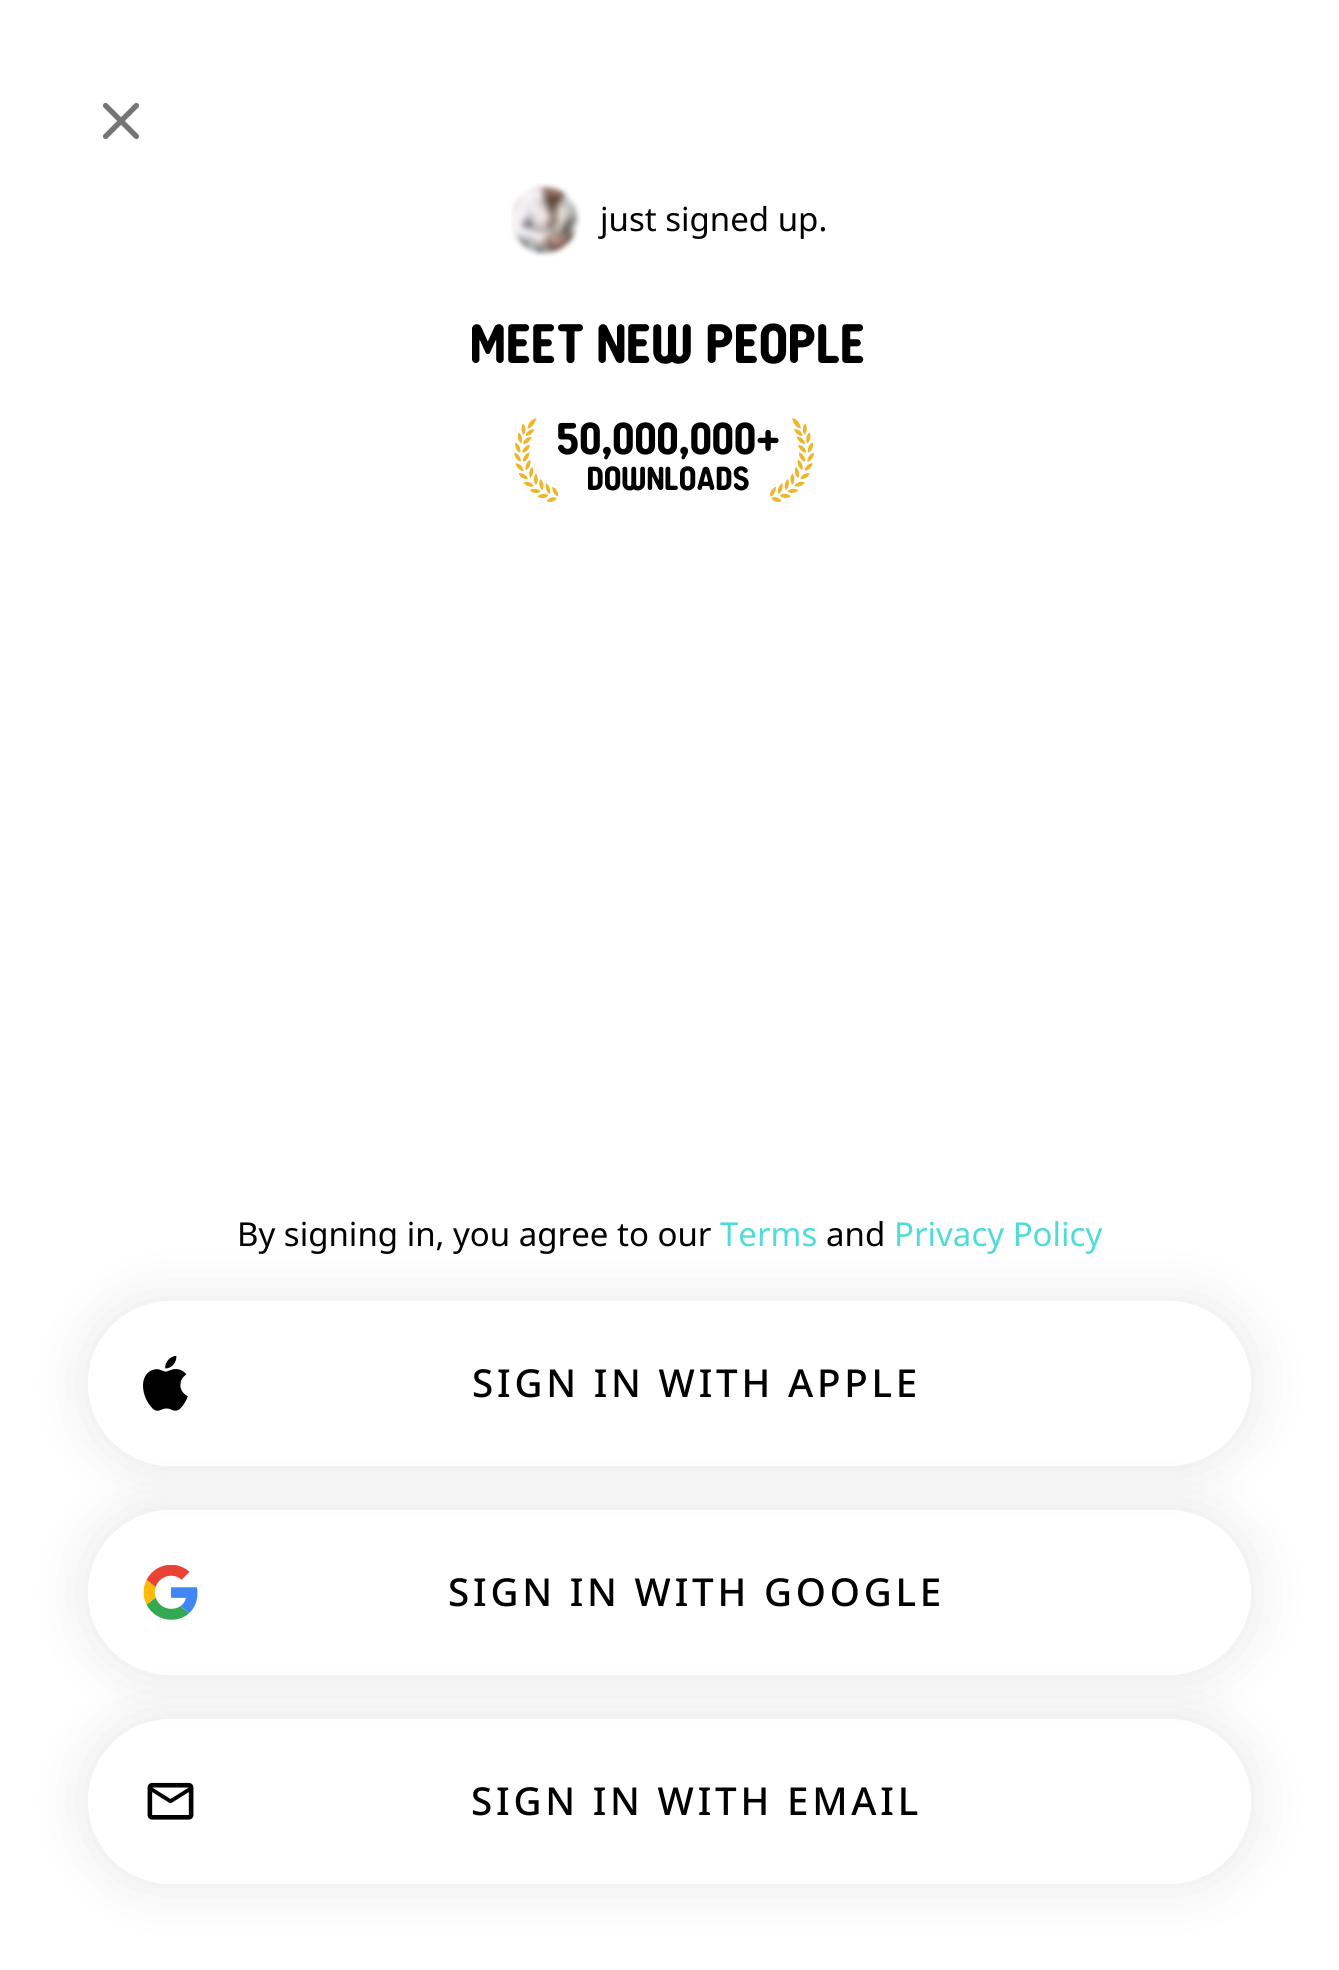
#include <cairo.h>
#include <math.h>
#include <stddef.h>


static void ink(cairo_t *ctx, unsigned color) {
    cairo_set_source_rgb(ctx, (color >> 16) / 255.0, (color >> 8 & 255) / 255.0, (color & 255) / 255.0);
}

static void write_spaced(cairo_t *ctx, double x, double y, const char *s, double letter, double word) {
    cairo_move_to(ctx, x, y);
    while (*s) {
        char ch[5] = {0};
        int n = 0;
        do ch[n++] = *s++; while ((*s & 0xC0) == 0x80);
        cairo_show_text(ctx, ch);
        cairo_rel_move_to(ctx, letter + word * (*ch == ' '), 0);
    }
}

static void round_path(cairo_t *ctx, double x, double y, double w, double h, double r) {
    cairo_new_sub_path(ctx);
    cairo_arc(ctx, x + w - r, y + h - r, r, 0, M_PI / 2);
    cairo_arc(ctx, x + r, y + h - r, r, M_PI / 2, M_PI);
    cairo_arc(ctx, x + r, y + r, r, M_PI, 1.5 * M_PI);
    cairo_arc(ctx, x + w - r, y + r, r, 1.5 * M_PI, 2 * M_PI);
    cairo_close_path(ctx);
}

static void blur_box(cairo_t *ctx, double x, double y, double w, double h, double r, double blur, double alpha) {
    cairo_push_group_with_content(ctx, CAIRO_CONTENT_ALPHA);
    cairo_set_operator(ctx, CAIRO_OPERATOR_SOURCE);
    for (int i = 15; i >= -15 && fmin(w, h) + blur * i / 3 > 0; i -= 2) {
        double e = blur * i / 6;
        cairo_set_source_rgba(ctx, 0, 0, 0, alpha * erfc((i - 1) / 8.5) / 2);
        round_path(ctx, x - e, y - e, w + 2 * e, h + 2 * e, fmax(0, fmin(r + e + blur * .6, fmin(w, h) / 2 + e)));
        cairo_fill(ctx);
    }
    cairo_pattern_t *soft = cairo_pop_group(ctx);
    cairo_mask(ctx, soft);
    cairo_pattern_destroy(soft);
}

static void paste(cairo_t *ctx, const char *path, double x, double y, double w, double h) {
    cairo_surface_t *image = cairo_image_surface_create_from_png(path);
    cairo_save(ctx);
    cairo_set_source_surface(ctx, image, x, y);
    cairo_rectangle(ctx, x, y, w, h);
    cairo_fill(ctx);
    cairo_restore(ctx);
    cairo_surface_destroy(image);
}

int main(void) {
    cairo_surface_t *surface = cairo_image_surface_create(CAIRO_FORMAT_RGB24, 1339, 1970);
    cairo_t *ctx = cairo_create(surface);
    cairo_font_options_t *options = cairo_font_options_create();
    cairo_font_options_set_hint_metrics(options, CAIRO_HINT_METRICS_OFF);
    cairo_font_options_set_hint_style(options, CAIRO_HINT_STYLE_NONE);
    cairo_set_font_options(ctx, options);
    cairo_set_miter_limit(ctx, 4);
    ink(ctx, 0xFFFFFF);
    cairo_paint(ctx);
    paste(ctx, "media/1.png", 102, 102, 38, 38);
    paste(ctx, "media/2.png", 511, 183, 71, 74);
    cairo_select_font_face(ctx, "Noto Sans", CAIRO_FONT_SLANT_NORMAL, CAIRO_FONT_WEIGHT_NORMAL);
    cairo_set_font_size(ctx, 33);
    ink(ctx, 0x000000);
    cairo_move_to(ctx, 600, 231);
    cairo_show_text(ctx, "just signed up.");
    cairo_select_font_face(ctx, "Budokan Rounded", CAIRO_FONT_SLANT_NORMAL, CAIRO_FONT_WEIGHT_BOLD);
    cairo_set_font_size(ctx, 55);
    cairo_move_to(ctx, 472, 363);
    cairo_show_text(ctx, "MEET NEW PEOPLE");
    cairo_set_font_size(ctx, 44);
    cairo_move_to(ctx, 558, 454);
    cairo_show_text(ctx, "50,000,000+");
    paste(ctx, "media/3.png", 514, 418, 44, 84);
    cairo_set_font_size(ctx, 33);
    cairo_move_to(ctx, 588, 490);
    cairo_show_text(ctx, "DOWNLOADS");
    paste(ctx, "media/4.png", 770, 418, 44, 84);
    cairo_select_font_face(ctx, "Noto Sans", CAIRO_FONT_SLANT_NORMAL, CAIRO_FONT_WEIGHT_NORMAL);
    cairo_move_to(ctx, 237, 1246);
    cairo_show_text(ctx, "By signing in, you agree to our");
    ink(ctx, 0x4EDCD8);
    cairo_move_to(ctx, 720, 1246);
    cairo_show_text(ctx, "Terms");
    ink(ctx, 0x000000);
    cairo_move_to(ctx, 826, 1246);
    cairo_show_text(ctx, "and");
    ink(ctx, 0x4EDCD8);
    cairo_move_to(ctx, 894, 1246);
    cairo_show_text(ctx, "Privacy Policy");
    cairo_save(ctx);
    cairo_set_fill_rule(ctx, CAIRO_FILL_RULE_EVEN_ODD);
    cairo_new_path(ctx);
    cairo_move_to(ctx, 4, 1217);
    cairo_line_to(ctx, 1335, 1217);
    cairo_line_to(ctx, 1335, 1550);
    cairo_line_to(ctx, 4, 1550);
    cairo_close_path(ctx);
    cairo_move_to(ctx, 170.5, 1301);
    cairo_line_to(ctx, 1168.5, 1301);
    cairo_curve_to(ctx, 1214, 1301, 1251, 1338, 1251, 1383.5);
    cairo_curve_to(ctx, 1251, 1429, 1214, 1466, 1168.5, 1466);
    cairo_line_to(ctx, 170.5, 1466);
    cairo_curve_to(ctx, 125, 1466, 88, 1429, 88, 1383.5);
    cairo_curve_to(ctx, 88, 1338, 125, 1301, 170.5, 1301);
    cairo_close_path(ctx);
    cairo_clip(ctx);
    ink(ctx, 0x9E9E9E);
    blur_box(ctx, 88, 1301, 1163, 165, 82.5, 27.5, 0.25);
    cairo_restore(ctx);
    paste(ctx, "media/5.png", 143, 1356, 45, 55);
    cairo_select_font_face(ctx, "Noto Sans Medium", CAIRO_FONT_SLANT_NORMAL, CAIRO_FONT_WEIGHT_NORMAL);
    cairo_set_font_size(ctx, 38.5);
    ink(ctx, 0x000000);
    write_spaced(ctx, 472, 1397, "SIGN IN WITH APPLE", 3.8, 0);
    cairo_save(ctx);
    cairo_set_fill_rule(ctx, CAIRO_FILL_RULE_EVEN_ODD);
    cairo_new_path(ctx);
    cairo_move_to(ctx, 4, 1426);
    cairo_line_to(ctx, 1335, 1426);
    cairo_line_to(ctx, 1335, 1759);
    cairo_line_to(ctx, 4, 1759);
    cairo_close_path(ctx);
    cairo_move_to(ctx, 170.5, 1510);
    cairo_line_to(ctx, 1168.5, 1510);
    cairo_curve_to(ctx, 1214, 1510, 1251, 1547, 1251, 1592.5);
    cairo_curve_to(ctx, 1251, 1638, 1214, 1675, 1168.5, 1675);
    cairo_line_to(ctx, 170.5, 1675);
    cairo_curve_to(ctx, 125, 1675, 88, 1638, 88, 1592.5);
    cairo_curve_to(ctx, 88, 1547, 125, 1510, 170.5, 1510);
    cairo_close_path(ctx);
    cairo_clip(ctx);
    ink(ctx, 0x9E9E9E);
    blur_box(ctx, 88, 1510, 1163, 165, 82.5, 27.5, 0.25);
    cairo_restore(ctx);
    paste(ctx, "media/6.png", 143, 1565, 55, 55);
    write_spaced(ctx, 448, 1606, "SIGN IN WITH GOOGLE", 3.8, 0);
    cairo_save(ctx);
    cairo_set_fill_rule(ctx, CAIRO_FILL_RULE_EVEN_ODD);
    cairo_new_path(ctx);
    cairo_move_to(ctx, 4, 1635);
    cairo_line_to(ctx, 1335, 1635);
    cairo_line_to(ctx, 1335, 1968);
    cairo_line_to(ctx, 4, 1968);
    cairo_close_path(ctx);
    cairo_move_to(ctx, 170.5, 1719);
    cairo_line_to(ctx, 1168.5, 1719);
    cairo_curve_to(ctx, 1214, 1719, 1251, 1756, 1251, 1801.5);
    cairo_curve_to(ctx, 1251, 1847, 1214, 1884, 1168.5, 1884);
    cairo_line_to(ctx, 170.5, 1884);
    cairo_curve_to(ctx, 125, 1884, 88, 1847, 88, 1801.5);
    cairo_curve_to(ctx, 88, 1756, 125, 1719, 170.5, 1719);
    cairo_close_path(ctx);
    cairo_clip(ctx);
    ink(ctx, 0x9E9E9E);
    blur_box(ctx, 88, 1719, 1163, 165, 82.5, 27.5, 0.25);
    cairo_restore(ctx);
    paste(ctx, "media/7.png", 147, 1782, 47, 38);
    write_spaced(ctx, 471, 1815, "SIGN IN WITH EMAIL", 3.8, 0);
    cairo_surface_write_to_png(surface, "image.png");
    cairo_font_options_destroy(options);
    cairo_destroy(ctx);
    cairo_surface_destroy(surface);
    return 0;
}
